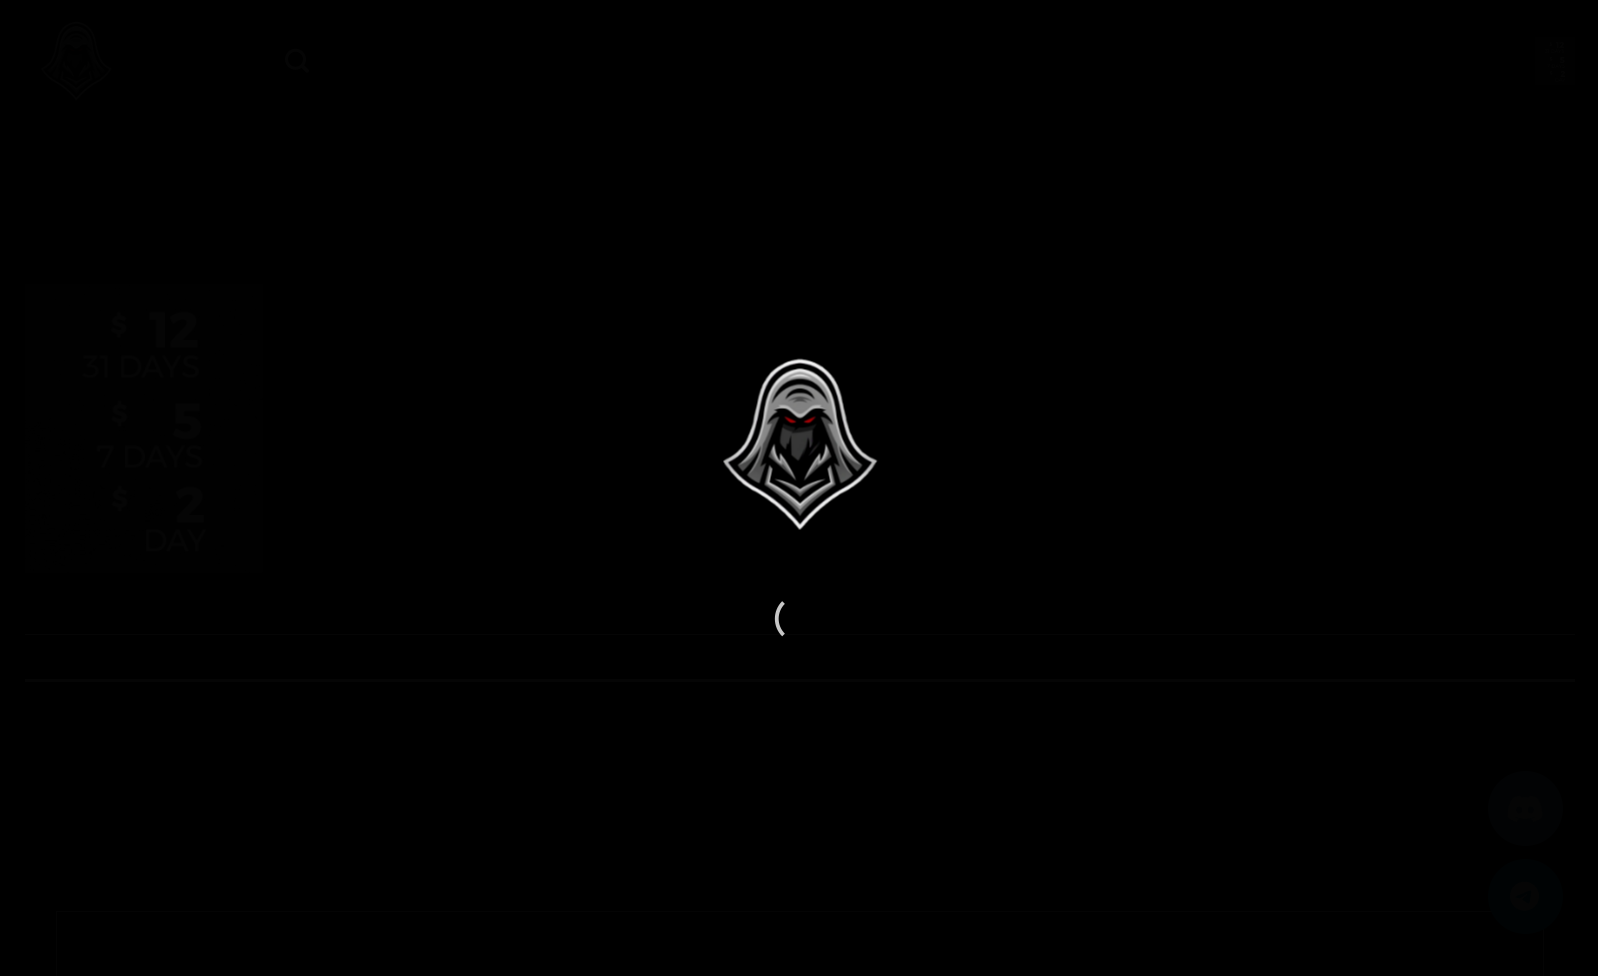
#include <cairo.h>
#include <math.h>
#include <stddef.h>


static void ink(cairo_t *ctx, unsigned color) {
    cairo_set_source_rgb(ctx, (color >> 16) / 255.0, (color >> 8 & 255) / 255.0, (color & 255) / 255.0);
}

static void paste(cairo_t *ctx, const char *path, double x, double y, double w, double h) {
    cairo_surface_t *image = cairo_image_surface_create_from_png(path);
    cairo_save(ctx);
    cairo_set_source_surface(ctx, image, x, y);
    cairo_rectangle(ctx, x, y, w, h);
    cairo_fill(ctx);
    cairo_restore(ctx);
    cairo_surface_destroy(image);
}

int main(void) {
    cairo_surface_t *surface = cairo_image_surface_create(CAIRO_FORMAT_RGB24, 1598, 976);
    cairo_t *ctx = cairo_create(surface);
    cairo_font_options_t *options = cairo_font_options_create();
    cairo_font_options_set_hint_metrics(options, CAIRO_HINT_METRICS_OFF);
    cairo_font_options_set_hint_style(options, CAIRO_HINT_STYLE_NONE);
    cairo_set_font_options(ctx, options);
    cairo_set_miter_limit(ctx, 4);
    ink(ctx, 0x000000);
    cairo_paint(ctx);
    paste(ctx, "media/1.png", 41, 21, 71, 80);
    paste(ctx, "media/2.png", 285, 48, 24, 25);
    paste(ctx, "media/3.png", 1535, 37, 40, 48);
    paste(ctx, "media/4.png", 25, 283, 238, 290);
    ink(ctx, 0x050505);
    cairo_rectangle(ctx, 25, 634, 1550, 1);
    cairo_fill(ctx);
    cairo_rectangle(ctx, 25, 679, 1550, 3);
    cairo_fill(ctx);
    cairo_rectangle(ctx, 56.5, 911.5, 1487, 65);
    ink(ctx, 0x040404);
    cairo_set_line_width(ctx, 1);
    cairo_stroke(ctx);
    paste(ctx, "media/5.png", 723, 358, 155, 172);
    cairo_new_path(ctx);
    cairo_move_to(ctx, 783.5, 635);
    cairo_curve_to(ctx, 774.5, 626, 774.5, 611.5, 783.5, 602.5);
    cairo_set_source_rgba(ctx, 1, 1, 1, 0.78);
    cairo_set_line_width(ctx, 3.8);
    cairo_stroke(ctx);
    ink(ctx, 0x020304);
    cairo_arc(ctx, 1525.5, 808.5, 37.5, 0, 2 * M_PI);
    cairo_fill(ctx);
    paste(ctx, "media/6.png", 1507, 795, 36, 27);
    ink(ctx, 0x000304);
    cairo_arc(ctx, 1525.5, 896.5, 37.5, 0, 2 * M_PI);
    cairo_fill(ctx);
    paste(ctx, "media/7.png", 1510, 881, 30, 30);
    cairo_surface_write_to_png(surface, "image.png");
    cairo_font_options_destroy(options);
    cairo_destroy(ctx);
    cairo_surface_destroy(surface);
    return 0;
}
